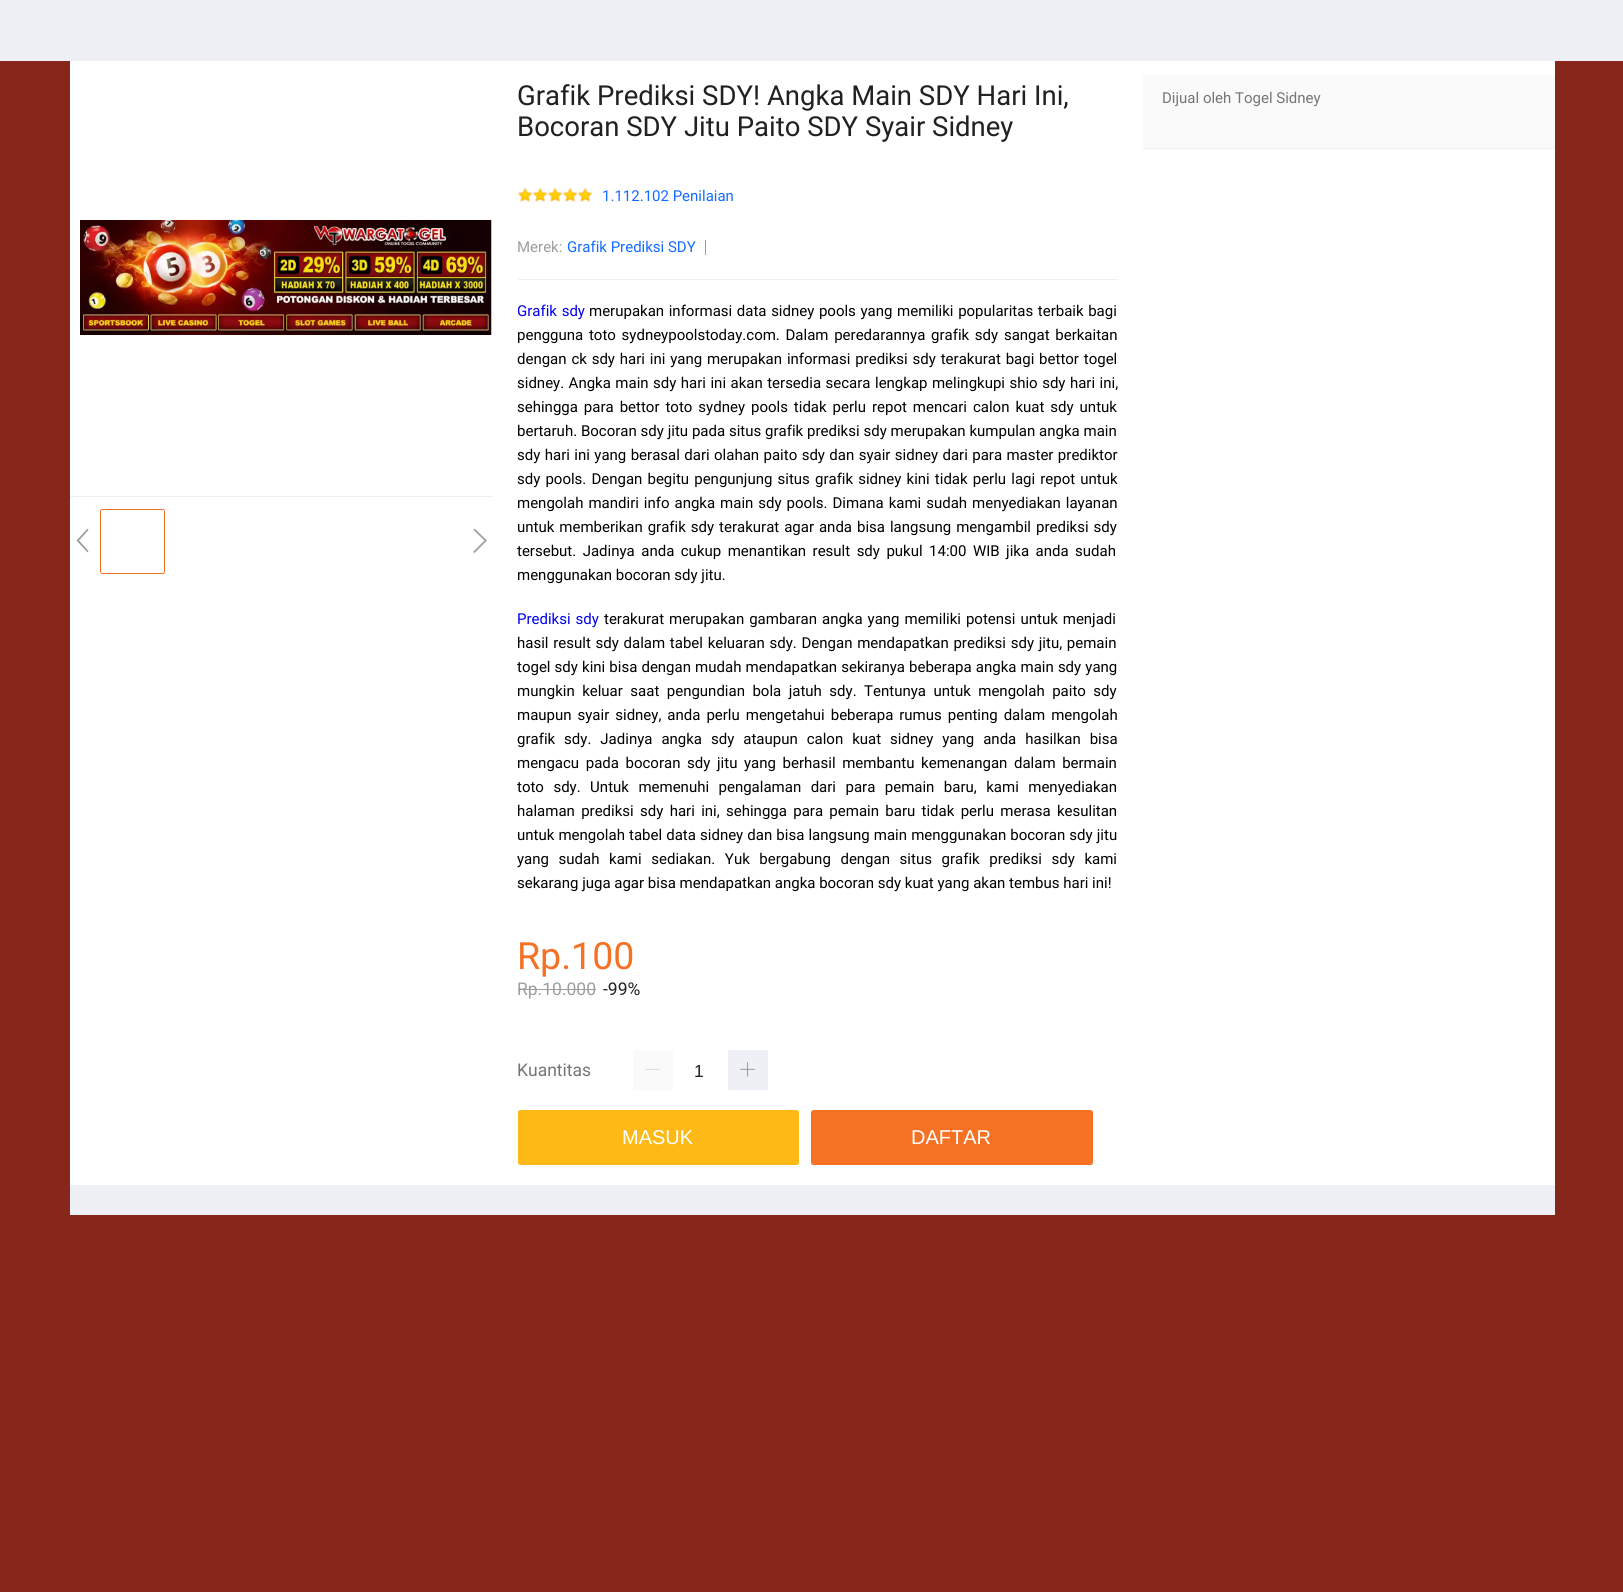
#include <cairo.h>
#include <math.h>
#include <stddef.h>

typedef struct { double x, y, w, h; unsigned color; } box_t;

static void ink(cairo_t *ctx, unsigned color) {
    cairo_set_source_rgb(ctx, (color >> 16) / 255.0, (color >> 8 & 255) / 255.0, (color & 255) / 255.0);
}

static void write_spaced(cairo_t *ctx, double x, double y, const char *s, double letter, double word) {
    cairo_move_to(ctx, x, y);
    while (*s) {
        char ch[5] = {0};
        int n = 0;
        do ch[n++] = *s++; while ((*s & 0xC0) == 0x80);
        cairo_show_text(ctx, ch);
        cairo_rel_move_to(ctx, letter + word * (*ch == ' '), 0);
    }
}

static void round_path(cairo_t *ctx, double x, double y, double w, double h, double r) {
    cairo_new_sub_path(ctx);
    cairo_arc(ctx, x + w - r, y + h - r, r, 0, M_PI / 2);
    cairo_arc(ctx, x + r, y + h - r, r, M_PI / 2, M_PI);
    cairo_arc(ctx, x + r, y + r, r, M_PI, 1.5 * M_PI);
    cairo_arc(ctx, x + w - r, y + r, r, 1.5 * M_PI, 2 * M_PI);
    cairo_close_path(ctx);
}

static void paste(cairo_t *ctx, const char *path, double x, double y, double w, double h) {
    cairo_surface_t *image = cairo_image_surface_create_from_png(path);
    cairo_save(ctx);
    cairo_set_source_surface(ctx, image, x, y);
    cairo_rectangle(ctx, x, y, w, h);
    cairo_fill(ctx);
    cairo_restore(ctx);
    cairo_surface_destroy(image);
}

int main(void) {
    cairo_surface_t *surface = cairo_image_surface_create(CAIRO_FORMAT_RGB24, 1623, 1592);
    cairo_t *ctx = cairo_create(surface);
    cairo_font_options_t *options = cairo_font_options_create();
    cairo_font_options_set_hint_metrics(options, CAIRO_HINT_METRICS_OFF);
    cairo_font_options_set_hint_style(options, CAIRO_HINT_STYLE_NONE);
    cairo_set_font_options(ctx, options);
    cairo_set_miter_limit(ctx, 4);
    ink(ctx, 0x87261B);
    cairo_paint(ctx);
    {
        static const box_t items[] = {
            {0, 0, 1623, 61, 0xEFF0F5},
            {70, 1185, 1485, 30, 0xEFF0F5},
            {70, 61, 1485, 1124, 0xFFFFFF},
            {70, 496, 423, 1, 0xEFF0F5},
        };
        for (size_t i = 0; i < sizeof items / sizeof *items; i++) {
            ink(ctx, items[i].color);
            cairo_rectangle(ctx, items[i].x, items[i].y, items[i].w, items[i].h);
            cairo_fill(ctx);
        }
    }
    paste(ctx, "media/1.png", 80, 220, 412, 115);
    ink(ctx, 0x9E9E9E);
    cairo_new_path(ctx);
    cairo_move_to(ctx, 88.5, 551);
    cairo_line_to(ctx, 79, 540.5);
    cairo_line_to(ctx, 88.5, 530);
    cairo_line_to(ctx, 87.5, 528.5);
    cairo_line_to(ctx, 76.5, 540.5);
    cairo_line_to(ctx, 87.5, 552.5);
    cairo_close_path(ctx);
    cairo_fill(ctx);
    round_path(ctx, 100.5, 509.5, 64, 64, 2);
    ink(ctx, 0xF57224);
    cairo_set_line_width(ctx, 1);
    cairo_stroke(ctx);
    ink(ctx, 0x9E9E9E);
    cairo_new_path(ctx);
    cairo_move_to(ctx, 474.5, 553);
    cairo_line_to(ctx, 473, 552);
    cairo_line_to(ctx, 484.5, 540.5);
    cairo_line_to(ctx, 473.5, 530);
    cairo_line_to(ctx, 474.5, 528.5);
    cairo_line_to(ctx, 487, 540.5);
    cairo_close_path(ctx);
    cairo_fill(ctx);
    cairo_select_font_face(ctx, "Roboto", CAIRO_FONT_SLANT_NORMAL, CAIRO_FONT_WEIGHT_NORMAL);
    cairo_set_font_size(ctx, 27.5);
    ink(ctx, 0x212121);
    cairo_move_to(ctx, 517, 105);
    cairo_show_text(ctx, "Grafik Prediksi SDY! Angka Main SDY Hari Ini,");
    cairo_move_to(ctx, 517, 136);
    cairo_show_text(ctx, "Bocoran SDY Jitu Paito SDY Syair Sidney");
    paste(ctx, "media/2.png", 517, 187, 16, 15);
    paste(ctx, "media/3.png", 532, 187, 16, 15);
    paste(ctx, "media/3.png", 547, 187, 16, 15);
    paste(ctx, "media/3.png", 562, 187, 16, 15);
    paste(ctx, "media/3.png", 577, 187, 16, 15);
    cairo_set_font_size(ctx, 15);
    ink(ctx, 0x136CFF);
    cairo_move_to(ctx, 602, 201);
    cairo_show_text(ctx, "1.112.102 Penilaian");
    ink(ctx, 0xEFF0F5);
    cairo_rectangle(ctx, 518, 279, 600, 1);
    cairo_fill(ctx);
    ink(ctx, 0x9E9E9E);
    cairo_move_to(ctx, 517, 252);
    cairo_show_text(ctx, "Merek:");
    ink(ctx, 0x136CFF);
    cairo_move_to(ctx, 567, 252);
    cairo_show_text(ctx, "Grafik Prediksi SDY");
    ink(ctx, 0x9E9E9E);
    cairo_rectangle(ctx, 705, 240, 1, 15);
    cairo_fill(ctx);
    ink(ctx, 0x0000EE);
    write_spaced(ctx, 517, 316, "Grafik sdy", 0, 1);
    ink(ctx, 0x000000);
    write_spaced(ctx, 589, 316, "merupakan informasi data sidney pools yang memiliki popularitas terbaik bagi", 0, 0.9);
    write_spaced(ctx, 517, 340, "pengguna toto sydneypoolstoday.com. Dalam peredarannya grafik sdy sangat berkaitan", 0, 2);
    write_spaced(ctx, 517, 364, "dengan ck sdy hari ini yang merupakan informasi prediksi sdy terakurat bagi bettor togel", 0, 1.1);
    write_spaced(ctx, 517, 388, "sidney. Angka main sdy hari ini akan tersedia secara lengkap melingkupi shio sdy hari ini,", 0, 0.75);
    write_spaced(ctx, 517, 412, "sehingga para bettor toto sydney pools tidak perlu repot mencari calon kuat sdy untuk", 0, 2.25);
    write_spaced(ctx, 517, 436, "bertaruh. Bocoran sdy jitu pada situs grafik prediksi sdy merupakan kumpulan angka main", 0, 0.1);
    write_spaced(ctx, 517, 460, "sdy hari ini yang berasal dari olahan paito sdy dan syair sidney dari para master prediktor", 0, 0.7);
    write_spaced(ctx, 517, 484, "sdy pools. Dengan begitu pengunjung situs grafik sidney kini tidak perlu lagi repot untuk", 0, 1.4);
    write_spaced(ctx, 517, 508, "mengolah mandiri info angka main sdy pools. Dimana kami sudah menyediakan layanan", 0, 1.25);
    write_spaced(ctx, 517, 532, "untuk memberikan grafik sdy terakurat agar anda bisa langsung mengambil prediksi sdy", 0, 1.25);
    write_spaced(ctx, 517, 556, "tersebut. Jadinya anda cukup menantikan result sdy pukul 14:00 WIB jika anda sudah", 0, 2.75);
    cairo_move_to(ctx, 517, 580);
    cairo_show_text(ctx, "menggunakan bocoran sdy jitu.");
    ink(ctx, 0x0000EE);
    write_spaced(ctx, 517, 624, "Prediksi sdy", 0, 1.25);
    ink(ctx, 0x000000);
    write_spaced(ctx, 604, 624, "terakurat merupakan gambaran angka yang memiliki potensi untuk menjadi", 0, 1.25);
    write_spaced(ctx, 517, 648, "hasil result sdy dalam tabel keluaran sdy. Dengan mendapatkan prediksi sdy jitu, pemain", 0, 1);
    write_spaced(ctx, 517, 672, "togel sdy kini bisa dengan mudah mendapatkan sekiranya beberapa angka main sdy yang", 0, 0.4);
    write_spaced(ctx, 517, 696, "mungkin keluar saat pengundian bola jatuh sdy. Tentunya untuk mengolah paito sdy", 0, 3.75);
    write_spaced(ctx, 517, 720, "maupun syair sidney, anda perlu mengetahui beberapa rumus penting dalam mengolah", 0, 2.25);
    write_spaced(ctx, 517, 744, "grafik sdy. Jadinya angka sdy ataupun calon kuat sidney yang anda hasilkan bisa", 0, 5.25);
    write_spaced(ctx, 517, 768, "mengacu pada bocoran sdy jitu yang berhasil membantu kemenangan dalam bermain", 0, 2.9);
    write_spaced(ctx, 517, 792, "toto sdy. Untuk memenuhi pengalaman dari para pemain baru, kami menyediakan", 0, 5.75);
    write_spaced(ctx, 517, 816, "halaman prediksi sdy hari ini, sehingga para pemain baru tidak perlu merasa kesulitan", 0, 2.6);
    write_spaced(ctx, 517, 840, "untuk mengolah tabel data sidney dan bisa langsung main menggunakan bocoran sdy jitu", 0, 0.4);
    write_spaced(ctx, 517, 864, "yang sudah kami sediakan. Yuk bergabung dengan situs grafik prediksi sdy kami", 0, 5.9);
    cairo_move_to(ctx, 517, 888);
    cairo_show_text(ctx, "sekarang juga agar bisa mendapatkan angka bocoran sdy kuat yang akan tembus hari ini!");
    cairo_set_font_size(ctx, 37.5);
    ink(ctx, 0xF57224);
    cairo_move_to(ctx, 517, 969);
    cairo_show_text(ctx, "Rp.100");
    cairo_set_font_size(ctx, 17.5);
    ink(ctx, 0x9E9E9E);
    cairo_move_to(ctx, 517, 995);
    cairo_show_text(ctx, "Rp.10.000");
    cairo_rectangle(ctx, 518, 989, 78, 1);
    cairo_fill(ctx);
    ink(ctx, 0x212121);
    cairo_move_to(ctx, 603, 995);
    cairo_show_text(ctx, "-99%");
    ink(ctx, 0x757575);
    cairo_move_to(ctx, 517, 1076);
    cairo_show_text(ctx, "Kuantitas");
    ink(ctx, 0xFAFAFA);
    cairo_rectangle(ctx, 633, 1050, 40, 40);
    cairo_fill(ctx);
    paste(ctx, "media/4.png", 645, 1068, 15, 2);
    ink(ctx, 0xEFF0F5);
    cairo_rectangle(ctx, 728, 1050, 40, 40);
    cairo_fill(ctx);
    paste(ctx, "media/5.png", 740, 1062, 15, 15);
    cairo_select_font_face(ctx, "Liberation Sans", CAIRO_FONT_SLANT_NORMAL, CAIRO_FONT_WEIGHT_NORMAL);
    ink(ctx, 0x212121);
    cairo_move_to(ctx, 694, 1077);
    cairo_show_text(ctx, "1");
    ink(ctx, 0xFFB916);
    round_path(ctx, 518, 1110, 281, 55, 2.5);
    cairo_fill(ctx);
    cairo_set_font_size(ctx, 20);
    ink(ctx, 0xFFFFFF);
    cairo_move_to(ctx, 622, 1144);
    cairo_show_text(ctx, "MASUK");
    ink(ctx, 0xF57224);
    round_path(ctx, 811, 1110, 282, 55, 2.5);
    cairo_fill(ctx);
    ink(ctx, 0xFFFFFF);
    cairo_move_to(ctx, 911, 1144);
    cairo_show_text(ctx, "DAFTAR");
    ink(ctx, 0xFAFAFA);
    cairo_rectangle(ctx, 1143, 74, 412, 74);
    cairo_fill(ctx);
    cairo_select_font_face(ctx, "Roboto", CAIRO_FONT_SLANT_NORMAL, CAIRO_FONT_WEIGHT_NORMAL);
    cairo_set_font_size(ctx, 15);
    ink(ctx, 0x757575);
    cairo_move_to(ctx, 1162, 103);
    cairo_show_text(ctx, "Dijual oleh Togel Sidney");
    ink(ctx, 0xEFF0F5);
    cairo_rectangle(ctx, 1143, 148, 412, 1);
    cairo_fill(ctx);
    cairo_surface_write_to_png(surface, "image.png");
    cairo_font_options_destroy(options);
    cairo_destroy(ctx);
    cairo_surface_destroy(surface);
    return 0;
}
